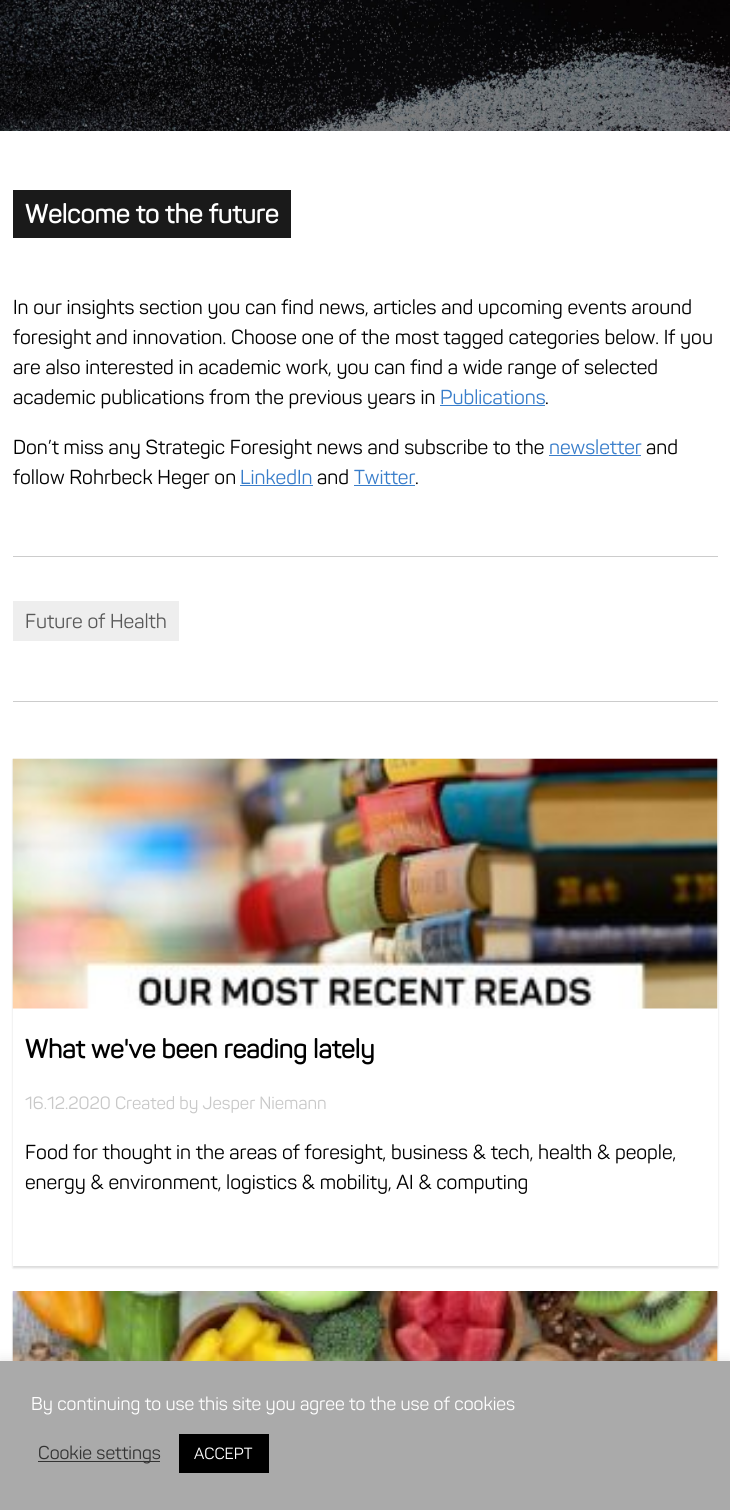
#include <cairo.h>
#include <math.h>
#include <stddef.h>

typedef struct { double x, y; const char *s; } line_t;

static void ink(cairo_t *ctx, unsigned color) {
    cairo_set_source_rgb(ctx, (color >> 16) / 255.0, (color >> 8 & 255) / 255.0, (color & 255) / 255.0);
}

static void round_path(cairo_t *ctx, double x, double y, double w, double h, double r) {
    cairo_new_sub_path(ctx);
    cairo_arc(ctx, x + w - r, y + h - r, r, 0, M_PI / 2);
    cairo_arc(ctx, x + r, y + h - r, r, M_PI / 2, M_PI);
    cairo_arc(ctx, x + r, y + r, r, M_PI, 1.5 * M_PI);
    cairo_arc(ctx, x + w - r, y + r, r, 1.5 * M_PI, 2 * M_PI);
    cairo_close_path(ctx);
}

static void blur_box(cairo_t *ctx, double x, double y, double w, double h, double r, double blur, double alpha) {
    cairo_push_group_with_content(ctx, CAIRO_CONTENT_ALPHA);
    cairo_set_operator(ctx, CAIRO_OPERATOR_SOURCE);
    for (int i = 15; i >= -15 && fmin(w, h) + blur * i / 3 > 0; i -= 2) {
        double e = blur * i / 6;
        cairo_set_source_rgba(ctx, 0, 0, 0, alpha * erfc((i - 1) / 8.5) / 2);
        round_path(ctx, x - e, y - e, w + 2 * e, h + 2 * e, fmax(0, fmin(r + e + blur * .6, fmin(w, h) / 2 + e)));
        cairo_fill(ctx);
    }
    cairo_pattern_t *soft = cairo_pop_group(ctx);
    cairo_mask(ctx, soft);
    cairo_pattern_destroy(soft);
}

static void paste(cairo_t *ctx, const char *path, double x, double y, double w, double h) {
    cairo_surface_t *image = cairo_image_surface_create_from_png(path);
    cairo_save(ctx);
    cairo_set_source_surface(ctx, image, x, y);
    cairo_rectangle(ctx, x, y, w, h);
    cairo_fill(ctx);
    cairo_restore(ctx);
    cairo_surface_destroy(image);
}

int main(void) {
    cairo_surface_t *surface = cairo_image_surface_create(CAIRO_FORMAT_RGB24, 730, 1510);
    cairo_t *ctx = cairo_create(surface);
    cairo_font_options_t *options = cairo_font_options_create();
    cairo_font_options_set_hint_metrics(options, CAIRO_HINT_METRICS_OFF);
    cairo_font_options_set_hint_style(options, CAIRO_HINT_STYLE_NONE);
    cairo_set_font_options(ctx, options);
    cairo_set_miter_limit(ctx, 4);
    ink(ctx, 0xFFFFFF);
    cairo_paint(ctx);
    paste(ctx, "media/1.png", 0, 0, 730, 131);
    ink(ctx, 0x1A1A1A);
    cairo_rectangle(ctx, 13, 190, 278, 48);
    cairo_fill(ctx);
    cairo_select_font_face(ctx, "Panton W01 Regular", CAIRO_FONT_SLANT_NORMAL, CAIRO_FONT_WEIGHT_BOLD);
    cairo_set_font_size(ctx, 26);
    ink(ctx, 0xFFFFFF);
    cairo_move_to(ctx, 25, 223);
    cairo_show_text(ctx, "Welcome to the future");
    cairo_select_font_face(ctx, "Panton W01 Regular", CAIRO_FONT_SLANT_NORMAL, CAIRO_FONT_WEIGHT_NORMAL);
    cairo_set_font_size(ctx, 20);
    ink(ctx, 0x000000);
    {
        static const line_t items[] = {
            {13, 314, "In our insights section you can find news, articles and upcoming events around"},
            {13, 344, "foresight and innovation. Choose one of the most tagged categories below. If you"},
            {13, 374, "are also interested in academic work, you can find a wide range of selected"},
            {13, 404, "academic publications from the previous years in"},
        };
        for (size_t i = 0; i < sizeof items / sizeof *items; i++) {
            cairo_move_to(ctx, items[i].x, items[i].y);
            cairo_show_text(ctx, items[i].s);
        }
    }
    ink(ctx, 0x387DCA);
    cairo_move_to(ctx, 440, 404);
    cairo_show_text(ctx, "Publications");
    cairo_rectangle(ctx, 440, 405, 105, 1);
    cairo_fill(ctx);
    ink(ctx, 0x000000);
    cairo_move_to(ctx, 545, 404);
    cairo_show_text(ctx, ".");
    cairo_move_to(ctx, 13, 454);
    cairo_show_text(ctx, "Don’t miss any Strategic Foresight news and subscribe to the");
    ink(ctx, 0x387DCA);
    cairo_move_to(ctx, 549, 454);
    cairo_show_text(ctx, "newsletter");
    cairo_rectangle(ctx, 549, 455, 92, 1);
    cairo_fill(ctx);
    ink(ctx, 0x000000);
    cairo_move_to(ctx, 646, 454);
    cairo_show_text(ctx, "and");
    cairo_move_to(ctx, 13, 484);
    cairo_show_text(ctx, "follow Rohrbeck Heger on");
    ink(ctx, 0x387DCA);
    cairo_move_to(ctx, 240, 484);
    cairo_show_text(ctx, "LinkedIn");
    cairo_rectangle(ctx, 240, 485, 73, 1);
    cairo_fill(ctx);
    ink(ctx, 0x000000);
    cairo_move_to(ctx, 317, 484);
    cairo_show_text(ctx, "and");
    ink(ctx, 0x387DCA);
    cairo_move_to(ctx, 354, 484);
    cairo_show_text(ctx, "Twitter");
    cairo_rectangle(ctx, 354, 485, 61, 1);
    cairo_fill(ctx);
    ink(ctx, 0x000000);
    cairo_move_to(ctx, 415, 484);
    cairo_show_text(ctx, ".");
    ink(ctx, 0xCCCCCC);
    cairo_rectangle(ctx, 13, 556, 705, 1);
    cairo_fill(ctx);
    ink(ctx, 0xEEEEEE);
    cairo_rectangle(ctx, 13, 601, 166, 40);
    cairo_fill(ctx);
    ink(ctx, 0x595959);
    cairo_move_to(ctx, 25, 628);
    cairo_show_text(ctx, "Future of Health");
    ink(ctx, 0xCCCCCC);
    cairo_rectangle(ctx, 13, 701, 705, 1);
    cairo_fill(ctx);
    cairo_save(ctx);
    cairo_set_fill_rule(ctx, CAIRO_FILL_RULE_EVEN_ODD);
    cairo_new_path(ctx);
    cairo_move_to(ctx, 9, 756);
    cairo_line_to(ctx, 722, 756);
    cairo_line_to(ctx, 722, 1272);
    cairo_line_to(ctx, 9, 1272);
    cairo_close_path(ctx);
    cairo_move_to(ctx, 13, 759);
    cairo_line_to(ctx, 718, 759);
    cairo_line_to(ctx, 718, 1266);
    cairo_line_to(ctx, 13, 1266);
    cairo_close_path(ctx);
    cairo_clip(ctx);
    ink(ctx, 0x000000);
    blur_box(ctx, 13, 760, 705, 508, 0, 1, 0.15);
    cairo_restore(ctx);
    paste(ctx, "media/2.png", 12, 758, 706, 251);
    cairo_select_font_face(ctx, "Panton W01 Regular", CAIRO_FONT_SLANT_NORMAL, CAIRO_FONT_WEIGHT_BOLD);
    cairo_set_font_size(ctx, 26);
    ink(ctx, 0x000000);
    cairo_move_to(ctx, 25, 1058);
    cairo_show_text(ctx, "What we've been reading lately");
    cairo_select_font_face(ctx, "Panton W01 Regular", CAIRO_FONT_SLANT_NORMAL, CAIRO_FONT_WEIGHT_NORMAL);
    cairo_set_font_size(ctx, 17.5);
    ink(ctx, 0xC8C8C8);
    cairo_move_to(ctx, 25, 1109);
    cairo_show_text(ctx, "16.12.2020 Created by Jesper Niemann");
    cairo_set_font_size(ctx, 20);
    ink(ctx, 0x000000);
    cairo_move_to(ctx, 25, 1159);
    cairo_show_text(ctx, "Food for thought in the areas of foresight, business & tech, health & people,");
    cairo_move_to(ctx, 25, 1189);
    cairo_show_text(ctx, "energy & environment, logistics & mobility, AI & computing");
    ink(ctx, 0x000000);
    blur_box(ctx, 13, 1293, 705, 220, 0, 1, 0.15);
    paste(ctx, "media/3.png", 12, 1291, 706, 70);
    ink(ctx, 0xACABAB);
    blur_box(ctx, 0, 1360, 730, 149, 0, 6, 0.3);
    ink(ctx, 0xAAAAAA);
    cairo_rectangle(ctx, 0, 1361, 730, 149);
    cairo_fill(ctx);
    cairo_set_font_size(ctx, 18.3);
    ink(ctx, 0xFFFFFF);
    cairo_move_to(ctx, 31, 1410);
    cairo_show_text(ctx, "By continuing to use this site you agree to the use of cookies");
    ink(ctx, 0x333333);
    cairo_rectangle(ctx, 38, 1461, 122, 1);
    cairo_fill(ctx);
    cairo_move_to(ctx, 38, 1459);
    cairo_show_text(ctx, "Cookie settings");
    ink(ctx, 0x000000);
    cairo_rectangle(ctx, 179, 1434, 90, 39);
    cairo_fill(ctx);
    cairo_set_font_size(ctx, 16);
    ink(ctx, 0xFFFFFF);
    cairo_move_to(ctx, 194, 1459);
    cairo_show_text(ctx, "ACCEPT");
    cairo_surface_write_to_png(surface, "image.png");
    cairo_font_options_destroy(options);
    cairo_destroy(ctx);
    cairo_surface_destroy(surface);
    return 0;
}
